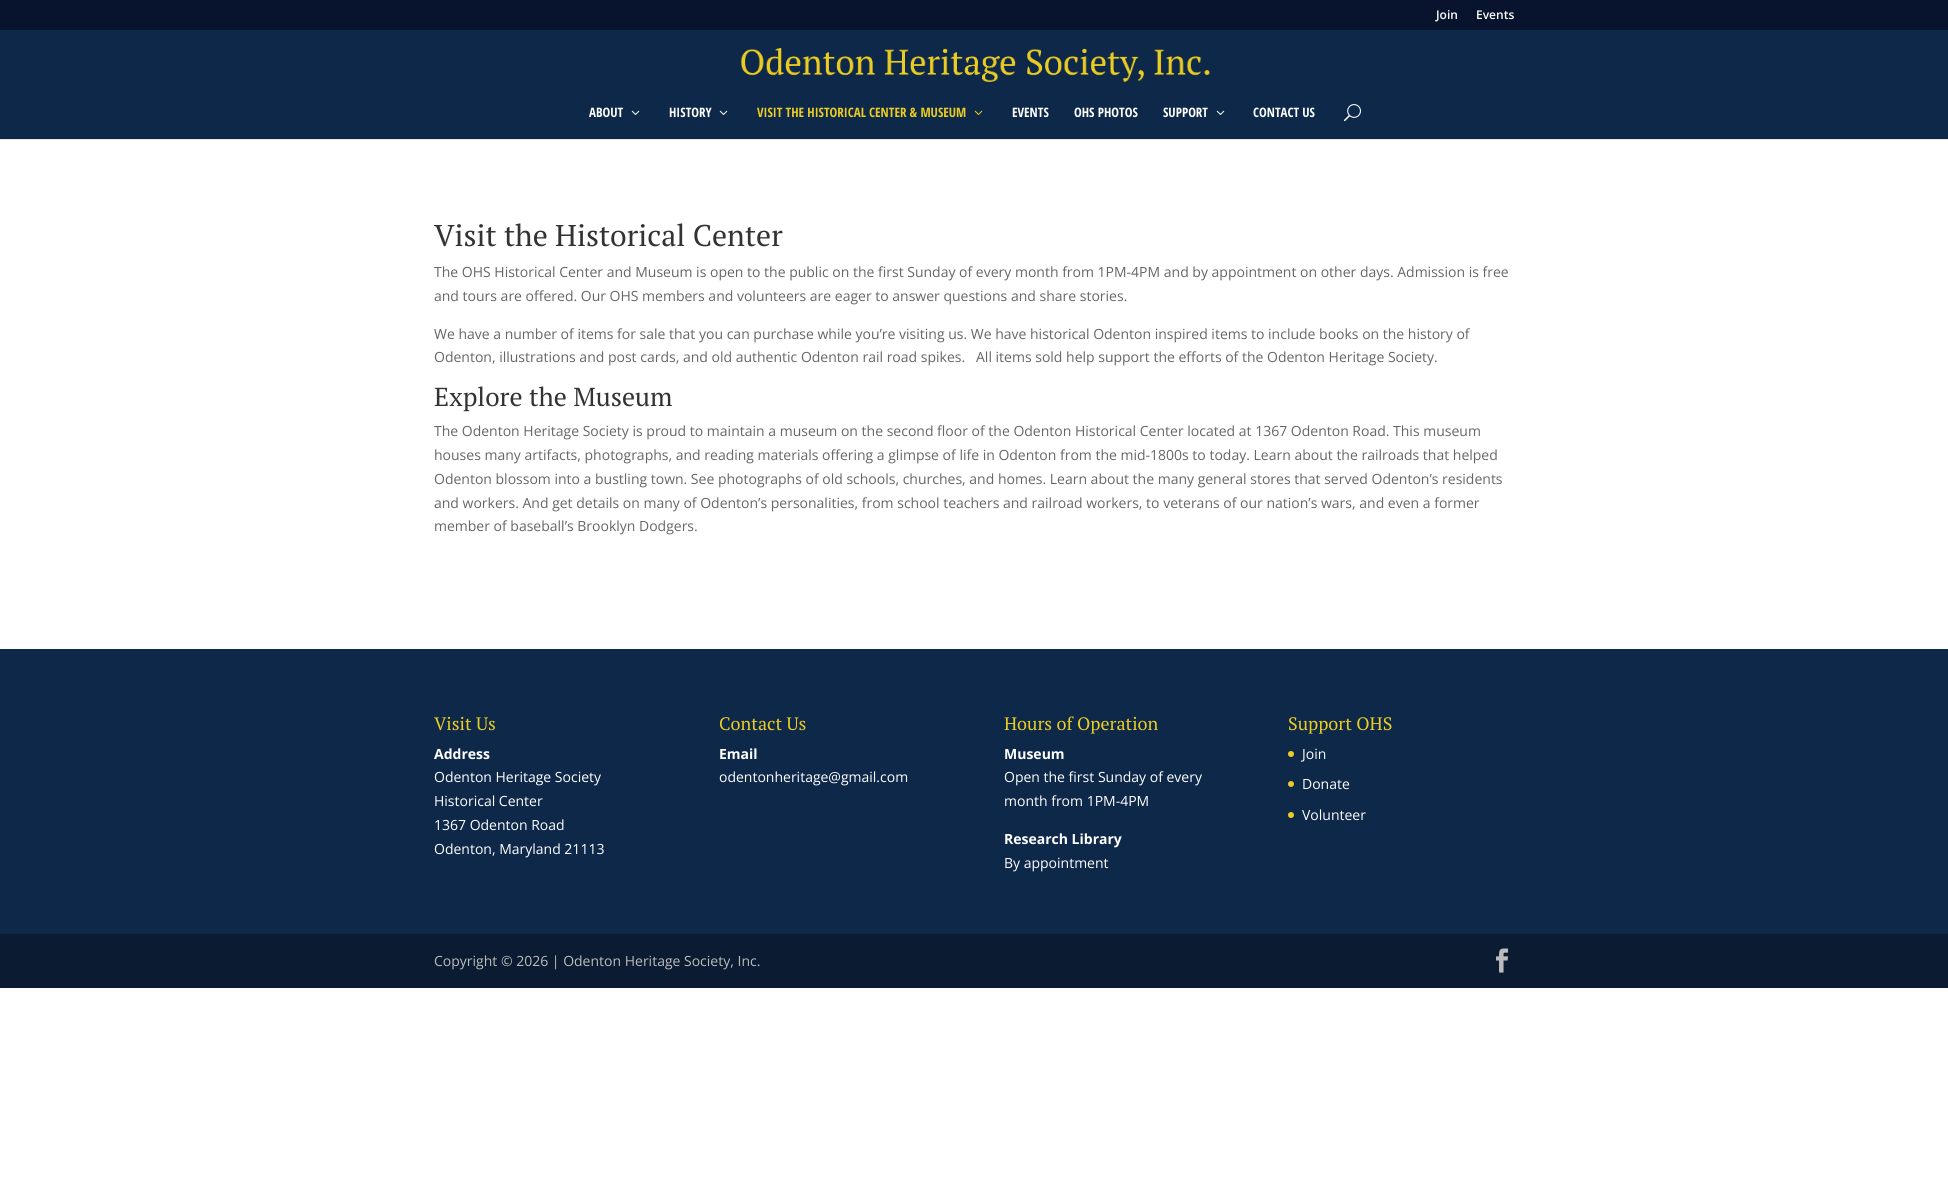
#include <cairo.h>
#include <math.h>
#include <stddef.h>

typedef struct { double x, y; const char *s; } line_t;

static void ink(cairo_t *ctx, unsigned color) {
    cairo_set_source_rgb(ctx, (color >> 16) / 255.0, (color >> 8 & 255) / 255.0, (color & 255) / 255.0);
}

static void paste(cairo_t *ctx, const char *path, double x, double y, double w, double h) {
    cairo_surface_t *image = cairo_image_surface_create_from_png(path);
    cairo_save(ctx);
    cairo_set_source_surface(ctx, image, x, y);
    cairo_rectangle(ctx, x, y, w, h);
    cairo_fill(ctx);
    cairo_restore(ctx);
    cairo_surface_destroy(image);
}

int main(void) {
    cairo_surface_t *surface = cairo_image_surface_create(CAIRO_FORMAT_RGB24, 1948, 1201);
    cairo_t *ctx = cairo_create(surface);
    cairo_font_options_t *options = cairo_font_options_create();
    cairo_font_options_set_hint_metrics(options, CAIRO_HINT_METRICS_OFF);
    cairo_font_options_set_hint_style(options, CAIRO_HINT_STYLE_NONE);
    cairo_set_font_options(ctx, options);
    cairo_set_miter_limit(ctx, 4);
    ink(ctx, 0xFFFFFF);
    cairo_paint(ctx);
    ink(ctx, 0x08132D);
    cairo_rectangle(ctx, 0, 0, 1948, 30);
    cairo_fill(ctx);
    cairo_select_font_face(ctx, "Open Sans SemiBold", CAIRO_FONT_SLANT_NORMAL, CAIRO_FONT_WEIGHT_NORMAL);
    cairo_set_font_size(ctx, 12);
    ink(ctx, 0xFFFFFF);
    cairo_move_to(ctx, 1436, 19);
    cairo_show_text(ctx, "Join");
    cairo_move_to(ctx, 1476, 19);
    cairo_show_text(ctx, "Events");
    ink(ctx, 0xE6E6E6);
    cairo_rectangle(ctx, 0, 139, 1948, 1);
    cairo_fill(ctx);
    ink(ctx, 0x0E2849);
    cairo_rectangle(ctx, 0, 30, 1948, 109);
    cairo_fill(ctx);
    paste(ctx, "media/1.png", 740, 48, 470, 34);
    cairo_select_font_face(ctx, "Open Sans Condensed", CAIRO_FONT_SLANT_NORMAL, CAIRO_FONT_WEIGHT_BOLD);
    cairo_set_font_size(ctx, 13);
    ink(ctx, 0xFFFFFF);
    cairo_move_to(ctx, 589, 117);
    cairo_show_text(ctx, "ABOUT");
    paste(ctx, "media/2.png", 631, 110, 9, 5);
    cairo_move_to(ctx, 669, 117);
    cairo_show_text(ctx, "HISTORY");
    paste(ctx, "media/2.png", 719, 110, 9, 5);
    ink(ctx, 0xEACC23);
    cairo_move_to(ctx, 757, 117);
    cairo_show_text(ctx, "VISIT THE HISTORICAL CENTER & MUSEUM");
    paste(ctx, "media/3.png", 974, 110, 9, 5);
    ink(ctx, 0xFFFFFF);
    {
        static const line_t items[] = {
            {1012, 117, "EVENTS"},
            {1074, 117, "OHS PHOTOS"},
            {1163, 117, "SUPPORT"},
        };
        for (size_t i = 0; i < sizeof items / sizeof *items; i++) {
            cairo_move_to(ctx, items[i].x, items[i].y);
            cairo_show_text(ctx, items[i].s);
        }
    }
    paste(ctx, "media/2.png", 1216, 110, 9, 5);
    cairo_move_to(ctx, 1253, 117);
    cairo_show_text(ctx, "CONTACT US");
    paste(ctx, "media/4.png", 1344, 104, 17, 18);
    cairo_select_font_face(ctx, "PT Serif", CAIRO_FONT_SLANT_NORMAL, CAIRO_FONT_WEIGHT_NORMAL);
    cairo_set_font_size(ctx, 30);
    ink(ctx, 0x333333);
    cairo_move_to(ctx, 434, 246);
    cairo_show_text(ctx, "Visit the Historical Center");
    cairo_select_font_face(ctx, "Open Sans", CAIRO_FONT_SLANT_NORMAL, CAIRO_FONT_WEIGHT_NORMAL);
    cairo_set_font_size(ctx, 14);
    ink(ctx, 0x666666);
    {
        static const line_t items[] = {
            {434, 277, "The OHS Historical Center and Museum is open to the public on the first Sunday of every month from 1PM-4PM and by appointment on other days. Admission is free"},
            {434, 301, "and tours are offered. Our OHS members and volunteers are eager to answer questions and share stories."},
            {434, 339, "We have a number of items for sale that you can purchase while you’re visiting us. We have historical Odenton inspired items to include books on the history of"},
            {434, 362, "Odenton, illustrations and post cards, and old authentic Odenton rail road spikes.   All items sold help support the efforts of the Odenton Heritage Society."},
        };
        for (size_t i = 0; i < sizeof items / sizeof *items; i++) {
            cairo_move_to(ctx, items[i].x, items[i].y);
            cairo_show_text(ctx, items[i].s);
        }
    }
    cairo_select_font_face(ctx, "PT Serif", CAIRO_FONT_SLANT_NORMAL, CAIRO_FONT_WEIGHT_NORMAL);
    cairo_set_font_size(ctx, 26);
    ink(ctx, 0x333333);
    cairo_move_to(ctx, 434, 406);
    cairo_show_text(ctx, "Explore the Museum");
    cairo_select_font_face(ctx, "Open Sans", CAIRO_FONT_SLANT_NORMAL, CAIRO_FONT_WEIGHT_NORMAL);
    cairo_set_font_size(ctx, 14);
    ink(ctx, 0x666666);
    {
        static const line_t items[] = {
            {434, 436, "The Odenton Heritage Society is proud to maintain a museum on the second floor of the Odenton Historical Center located at 1367 Odenton Road. This museum"},
            {434, 460, "houses many artifacts, photographs, and reading materials offering a glimpse of life in Odenton from the mid-1800s to today. Learn about the railroads that helped"},
            {434, 484, "Odenton blossom into a bustling town. See photographs of old schools, churches, and homes. Learn about the many general stores that served Odenton’s residents"},
            {434, 508, "and workers. And get details on many of Odenton’s personalities, from school teachers and railroad workers, to veterans of our nation’s wars, and even a former"},
            {434, 531, "member of baseball’s Brooklyn Dodgers."},
        };
        for (size_t i = 0; i < sizeof items / sizeof *items; i++) {
            cairo_move_to(ctx, items[i].x, items[i].y);
            cairo_show_text(ctx, items[i].s);
        }
    }
    ink(ctx, 0x0E2849);
    cairo_rectangle(ctx, 0, 649, 1948, 285);
    cairo_fill(ctx);
    cairo_select_font_face(ctx, "PT Serif", CAIRO_FONT_SLANT_NORMAL, CAIRO_FONT_WEIGHT_NORMAL);
    cairo_set_font_size(ctx, 18);
    ink(ctx, 0xEACC23);
    cairo_move_to(ctx, 434, 730);
    cairo_show_text(ctx, "Visit Us");
    cairo_select_font_face(ctx, "Open Sans", CAIRO_FONT_SLANT_NORMAL, CAIRO_FONT_WEIGHT_BOLD);
    cairo_set_font_size(ctx, 14);
    ink(ctx, 0xFFFFFF);
    cairo_move_to(ctx, 434, 759);
    cairo_show_text(ctx, "Address");
    cairo_select_font_face(ctx, "Open Sans", CAIRO_FONT_SLANT_NORMAL, CAIRO_FONT_WEIGHT_NORMAL);
    {
        static const line_t items[] = {
            {434, 782, "Odenton Heritage Society"},
            {434, 806, "Historical Center"},
            {434, 830, "1367 Odenton Road"},
            {434, 854, "Odenton, Maryland 21113"},
        };
        for (size_t i = 0; i < sizeof items / sizeof *items; i++) {
            cairo_move_to(ctx, items[i].x, items[i].y);
            cairo_show_text(ctx, items[i].s);
        }
    }
    cairo_select_font_face(ctx, "PT Serif", CAIRO_FONT_SLANT_NORMAL, CAIRO_FONT_WEIGHT_NORMAL);
    cairo_set_font_size(ctx, 18);
    ink(ctx, 0xEACC23);
    cairo_move_to(ctx, 719, 730);
    cairo_show_text(ctx, "Contact Us");
    cairo_select_font_face(ctx, "Open Sans", CAIRO_FONT_SLANT_NORMAL, CAIRO_FONT_WEIGHT_BOLD);
    cairo_set_font_size(ctx, 14);
    ink(ctx, 0xFFFFFF);
    cairo_move_to(ctx, 719, 759);
    cairo_show_text(ctx, "Email");
    cairo_select_font_face(ctx, "Open Sans", CAIRO_FONT_SLANT_NORMAL, CAIRO_FONT_WEIGHT_NORMAL);
    cairo_move_to(ctx, 719, 782);
    cairo_show_text(ctx, "odentonheritage@gmail.com");
    cairo_select_font_face(ctx, "PT Serif", CAIRO_FONT_SLANT_NORMAL, CAIRO_FONT_WEIGHT_NORMAL);
    cairo_set_font_size(ctx, 18);
    ink(ctx, 0xEACC23);
    cairo_move_to(ctx, 1004, 730);
    cairo_show_text(ctx, "Hours of Operation");
    cairo_select_font_face(ctx, "Open Sans", CAIRO_FONT_SLANT_NORMAL, CAIRO_FONT_WEIGHT_BOLD);
    cairo_set_font_size(ctx, 14);
    ink(ctx, 0xFFFFFF);
    cairo_move_to(ctx, 1004, 759);
    cairo_show_text(ctx, "Museum");
    cairo_select_font_face(ctx, "Open Sans", CAIRO_FONT_SLANT_NORMAL, CAIRO_FONT_WEIGHT_NORMAL);
    cairo_move_to(ctx, 1004, 782);
    cairo_show_text(ctx, "Open the first Sunday of every");
    cairo_move_to(ctx, 1004, 806);
    cairo_show_text(ctx, "month from 1PM-4PM");
    cairo_select_font_face(ctx, "Open Sans", CAIRO_FONT_SLANT_NORMAL, CAIRO_FONT_WEIGHT_BOLD);
    cairo_move_to(ctx, 1004, 844);
    cairo_show_text(ctx, "Research Library");
    cairo_select_font_face(ctx, "Open Sans", CAIRO_FONT_SLANT_NORMAL, CAIRO_FONT_WEIGHT_NORMAL);
    cairo_move_to(ctx, 1004, 868);
    cairo_show_text(ctx, "By appointment");
    cairo_select_font_face(ctx, "PT Serif", CAIRO_FONT_SLANT_NORMAL, CAIRO_FONT_WEIGHT_NORMAL);
    cairo_set_font_size(ctx, 18);
    ink(ctx, 0xEACC23);
    cairo_move_to(ctx, 1288, 730);
    cairo_show_text(ctx, "Support OHS");
    cairo_new_path(ctx);
    cairo_arc(ctx, 1291, 754, 3, 0, 2 * M_PI);
    cairo_fill(ctx);
    cairo_select_font_face(ctx, "Open Sans", CAIRO_FONT_SLANT_NORMAL, CAIRO_FONT_WEIGHT_NORMAL);
    cairo_set_font_size(ctx, 14);
    ink(ctx, 0xFFFFFF);
    cairo_move_to(ctx, 1302, 759);
    cairo_show_text(ctx, "Join");
    ink(ctx, 0xEACC23);
    cairo_new_path(ctx);
    cairo_arc(ctx, 1291, 784, 3, 0, 2 * M_PI);
    cairo_fill(ctx);
    ink(ctx, 0xFFFFFF);
    cairo_move_to(ctx, 1302, 789);
    cairo_show_text(ctx, "Donate");
    ink(ctx, 0xEACC23);
    cairo_new_path(ctx);
    cairo_arc(ctx, 1291, 815, 3, 0, 2 * M_PI);
    cairo_fill(ctx);
    ink(ctx, 0xFFFFFF);
    cairo_move_to(ctx, 1302, 820);
    cairo_show_text(ctx, "Volunteer");
    ink(ctx, 0x0A1B32);
    cairo_rectangle(ctx, 0, 934, 1948, 54);
    cairo_fill(ctx);
    ink(ctx, 0xBCBCBC);
    cairo_move_to(ctx, 434, 966);
    cairo_show_text(ctx, "Copyright © 2026 | Odenton Heritage Society, Inc.");
    paste(ctx, "media/5.png", 1496, 948, 13, 25);
    cairo_surface_write_to_png(surface, "image.png");
    cairo_font_options_destroy(options);
    cairo_destroy(ctx);
    cairo_surface_destroy(surface);
    return 0;
}
